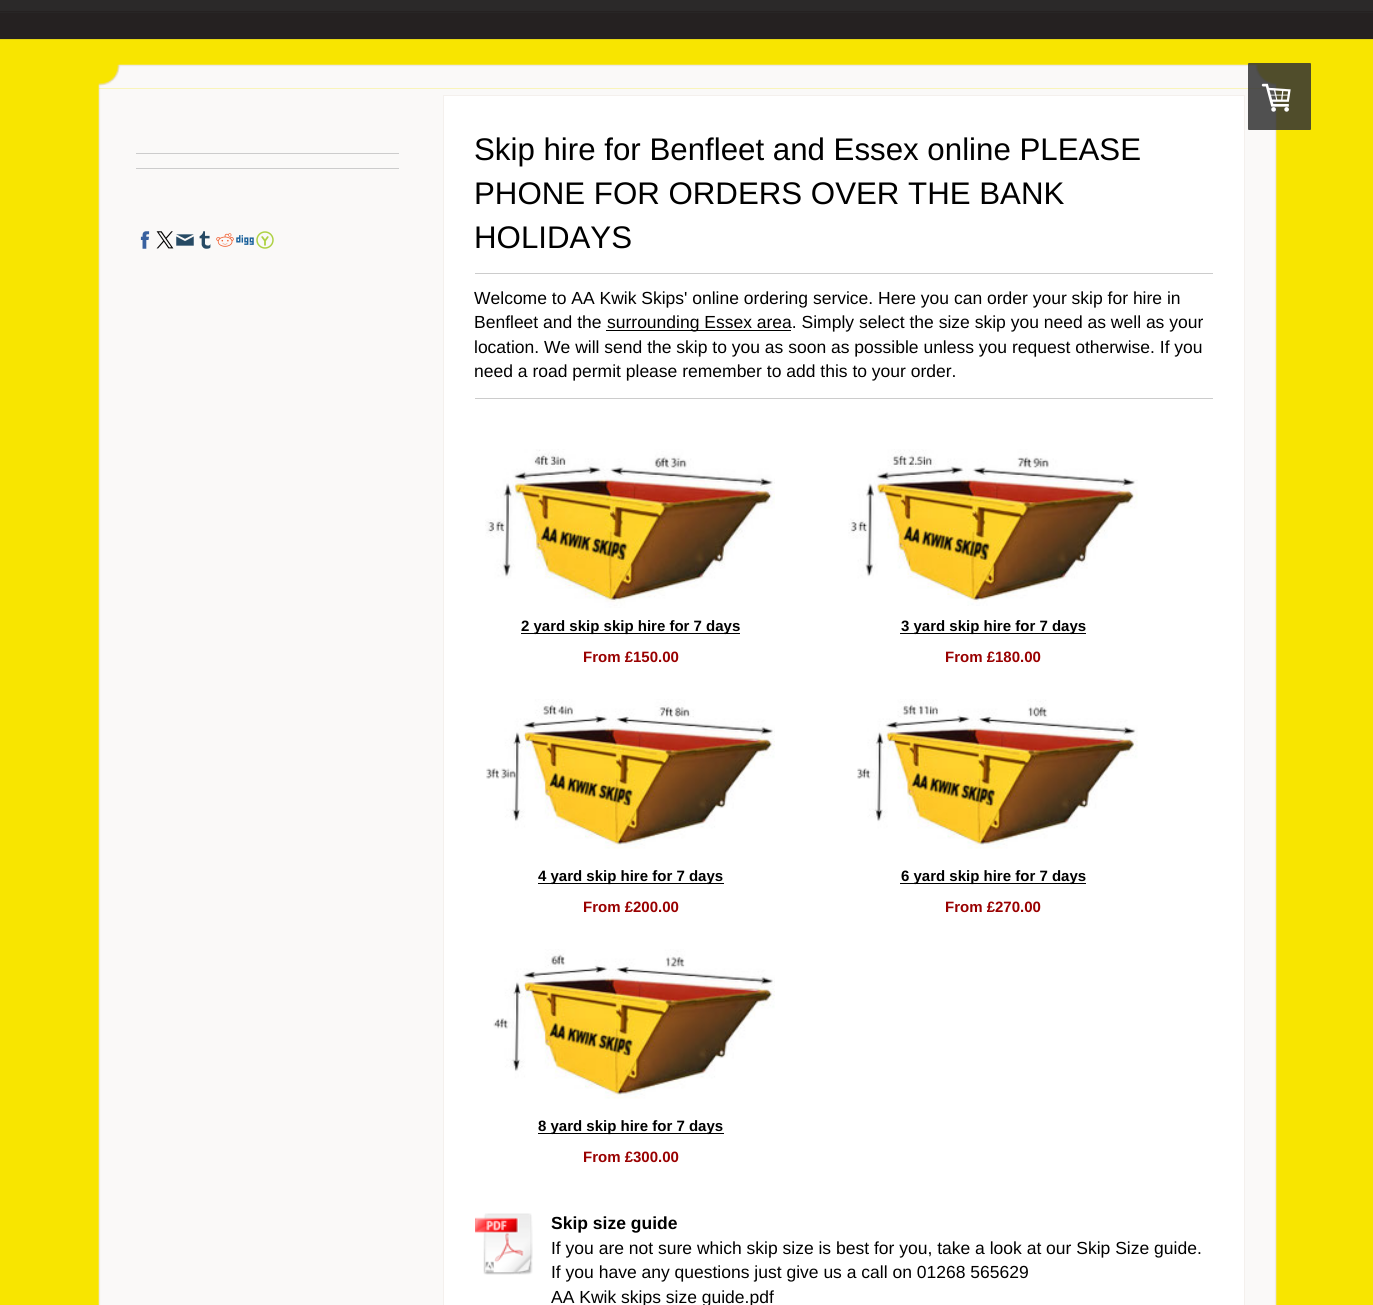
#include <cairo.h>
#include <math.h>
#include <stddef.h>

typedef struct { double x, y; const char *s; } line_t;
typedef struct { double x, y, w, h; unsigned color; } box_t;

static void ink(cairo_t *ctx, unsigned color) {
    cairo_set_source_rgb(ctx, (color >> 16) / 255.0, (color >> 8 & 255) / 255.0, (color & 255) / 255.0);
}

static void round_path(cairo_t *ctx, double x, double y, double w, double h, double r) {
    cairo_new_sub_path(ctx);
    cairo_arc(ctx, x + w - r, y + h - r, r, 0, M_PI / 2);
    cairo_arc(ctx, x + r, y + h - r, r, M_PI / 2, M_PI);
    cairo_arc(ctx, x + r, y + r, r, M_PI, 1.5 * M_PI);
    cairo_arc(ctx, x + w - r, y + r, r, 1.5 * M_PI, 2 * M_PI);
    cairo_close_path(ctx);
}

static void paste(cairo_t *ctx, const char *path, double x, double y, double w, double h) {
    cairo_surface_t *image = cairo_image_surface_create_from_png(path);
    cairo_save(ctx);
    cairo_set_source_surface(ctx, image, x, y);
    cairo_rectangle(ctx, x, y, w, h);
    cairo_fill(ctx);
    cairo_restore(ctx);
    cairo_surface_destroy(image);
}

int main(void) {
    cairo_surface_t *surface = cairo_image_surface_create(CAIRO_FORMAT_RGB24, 1373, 1305);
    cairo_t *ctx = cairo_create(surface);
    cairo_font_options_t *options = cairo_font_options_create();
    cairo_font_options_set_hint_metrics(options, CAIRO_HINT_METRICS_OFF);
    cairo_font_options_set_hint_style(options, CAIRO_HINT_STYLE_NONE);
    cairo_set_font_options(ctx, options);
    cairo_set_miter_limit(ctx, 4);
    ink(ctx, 0x252121);
    cairo_paint(ctx);
    {
        static const box_t items[] = {
            {0, 39, 1373, 1, 0xE4D412},
            {0, 0, 1373, 11, 0x2B2929},
            {0, 12, 1373, 1, 0x282626},
            {0, 40, 1373, 1265, 0xF8E500},
        };
        for (size_t i = 0; i < sizeof items / sizeof *items; i++) {
            ink(ctx, items[i].color);
            cairo_rectangle(ctx, items[i].x, items[i].y, items[i].w, items[i].h);
            cairo_fill(ctx);
        }
    }
    paste(ctx, "media/1.png", 98, 64, 1179, 25);
    paste(ctx, "media/2.png", 98, 88, 1179, 1217);
    cairo_set_source_rgba(ctx, 0.2, 0.2, 0.2, 0.85);
    round_path(ctx, 1248, 63, 63, 67, 1);
    cairo_fill(ctx);
    paste(ctx, "media/3.png", 1261, 83, 30, 29);
    ink(ctx, 0xCCCCCC);
    cairo_rectangle(ctx, 136, 153, 263, 1);
    cairo_fill(ctx);
    cairo_rectangle(ctx, 136, 168, 263, 1);
    cairo_fill(ctx);
    paste(ctx, "media/4.png", 140, 231, 10, 18);
    paste(ctx, "media/5.png", 156, 231, 18, 18);
    paste(ctx, "media/6.png", 176, 234, 18, 12);
    paste(ctx, "media/7.png", 199, 231, 12, 18);
    paste(ctx, "media/8.png", 216, 233, 18, 14);
    paste(ctx, "media/9.png", 236, 235, 18, 10);
    paste(ctx, "media/10.png", 256, 231, 18, 18);
    ink(ctx, 0xFFFFFF);
    cairo_rectangle(ctx, 443.5, 95.5, 801, 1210);
    cairo_fill_preserve(ctx);
    ink(ctx, 0xF4F0ED);
    cairo_set_line_width(ctx, 1);
    cairo_stroke(ctx);
    cairo_select_font_face(ctx, "Liberation Sans", CAIRO_FONT_SLANT_NORMAL, CAIRO_FONT_WEIGHT_NORMAL);
    cairo_set_font_size(ctx, 31.25);
    ink(ctx, 0x000000);
    {
        static const line_t items[] = {
            {474, 160, "Skip hire for Benfleet and Essex online PLEASE"},
            {474, 204, "PHONE FOR ORDERS OVER THE BANK"},
            {474, 248, "HOLIDAYS"},
        };
        for (size_t i = 0; i < sizeof items / sizeof *items; i++) {
            cairo_move_to(ctx, items[i].x, items[i].y);
            cairo_show_text(ctx, items[i].s);
        }
    }
    ink(ctx, 0xCCCCCC);
    cairo_rectangle(ctx, 475, 273, 738, 1);
    cairo_fill(ctx);
    cairo_set_font_size(ctx, 17.5);
    ink(ctx, 0x000000);
    cairo_move_to(ctx, 474, 304);
    cairo_show_text(ctx, "Welcome to AA Kwik Skips' online ordering service. Here you can order your skip for hire in");
    cairo_move_to(ctx, 474, 328);
    cairo_show_text(ctx, "Benfleet and the");
    cairo_rectangle(ctx, 606, 330, 185, 1);
    cairo_fill(ctx);
    {
        static const line_t items[] = {
            {607, 328, "surrounding Essex area. Simply select the size skip you need as well as your"},
            {474, 353, "location. We will send the skip to you as soon as possible unless you request otherwise. If you"},
            {474, 377, "need a road permit please remember to add this to your order."},
        };
        for (size_t i = 0; i < sizeof items / sizeof *items; i++) {
            cairo_move_to(ctx, items[i].x, items[i].y);
            cairo_show_text(ctx, items[i].s);
        }
    }
    ink(ctx, 0xCCCCCC);
    cairo_rectangle(ctx, 475, 398, 738, 1);
    cairo_fill(ctx);
    paste(ctx, "media/11.png", 485, 449, 290, 159);
    ink(ctx, 0x000000);
    cairo_rectangle(ctx, 521, 633, 219, 1);
    cairo_fill(ctx);
    cairo_select_font_face(ctx, "Liberation Sans", CAIRO_FONT_SLANT_NORMAL, CAIRO_FONT_WEIGHT_BOLD);
    cairo_set_font_size(ctx, 15);
    cairo_move_to(ctx, 521, 631);
    cairo_show_text(ctx, "2 yard skip skip hire for 7 days");
    ink(ctx, 0x990000);
    cairo_move_to(ctx, 583, 662);
    cairo_show_text(ctx, "From £150.00");
    paste(ctx, "media/12.png", 848, 449, 290, 157);
    ink(ctx, 0x000000);
    cairo_rectangle(ctx, 900, 633, 186, 1);
    cairo_fill(ctx);
    cairo_move_to(ctx, 901, 631);
    cairo_show_text(ctx, "3 yard skip hire for 7 days");
    ink(ctx, 0x990000);
    cairo_move_to(ctx, 945, 662);
    cairo_show_text(ctx, "From £180.00");
    paste(ctx, "media/13.png", 486, 699, 289, 150);
    ink(ctx, 0x000000);
    cairo_rectangle(ctx, 538, 883, 186, 1);
    cairo_fill(ctx);
    cairo_move_to(ctx, 538, 881);
    cairo_show_text(ctx, "4 yard skip hire for 7 days");
    ink(ctx, 0x990000);
    cairo_move_to(ctx, 583, 912);
    cairo_show_text(ctx, "From £200.00");
    paste(ctx, "media/14.png", 857, 699, 281, 150);
    ink(ctx, 0x000000);
    cairo_rectangle(ctx, 900, 883, 186, 1);
    cairo_fill(ctx);
    cairo_move_to(ctx, 901, 881);
    cairo_show_text(ctx, "6 yard skip hire for 7 days");
    ink(ctx, 0x990000);
    cairo_move_to(ctx, 945, 912);
    cairo_show_text(ctx, "From £270.00");
    paste(ctx, "media/15.png", 493, 949, 282, 150);
    ink(ctx, 0x000000);
    cairo_rectangle(ctx, 538, 1133, 186, 1);
    cairo_fill(ctx);
    cairo_move_to(ctx, 538, 1131);
    cairo_show_text(ctx, "8 yard skip hire for 7 days");
    ink(ctx, 0x990000);
    cairo_move_to(ctx, 583, 1162);
    cairo_show_text(ctx, "From £300.00");
    paste(ctx, "media/16.png", 475, 1213, 58, 62);
    cairo_set_font_size(ctx, 17.5);
    ink(ctx, 0x000000);
    cairo_move_to(ctx, 551, 1229);
    cairo_show_text(ctx, "Skip size guide");
    cairo_select_font_face(ctx, "Liberation Sans", CAIRO_FONT_SLANT_NORMAL, CAIRO_FONT_WEIGHT_NORMAL);
    {
        static const line_t items[] = {
            {551, 1254, "If you are not sure which skip size is best for you, take a look at our Skip Size guide."},
            {551, 1278, "If you have any questions just give us a call on 01268 565629"},
            {551, 1303, "AA Kwik skips size guide.pdf"},
        };
        for (size_t i = 0; i < sizeof items / sizeof *items; i++) {
            cairo_move_to(ctx, items[i].x, items[i].y);
            cairo_show_text(ctx, items[i].s);
        }
    }
    cairo_surface_write_to_png(surface, "image.png");
    cairo_font_options_destroy(options);
    cairo_destroy(ctx);
    cairo_surface_destroy(surface);
    return 0;
}
